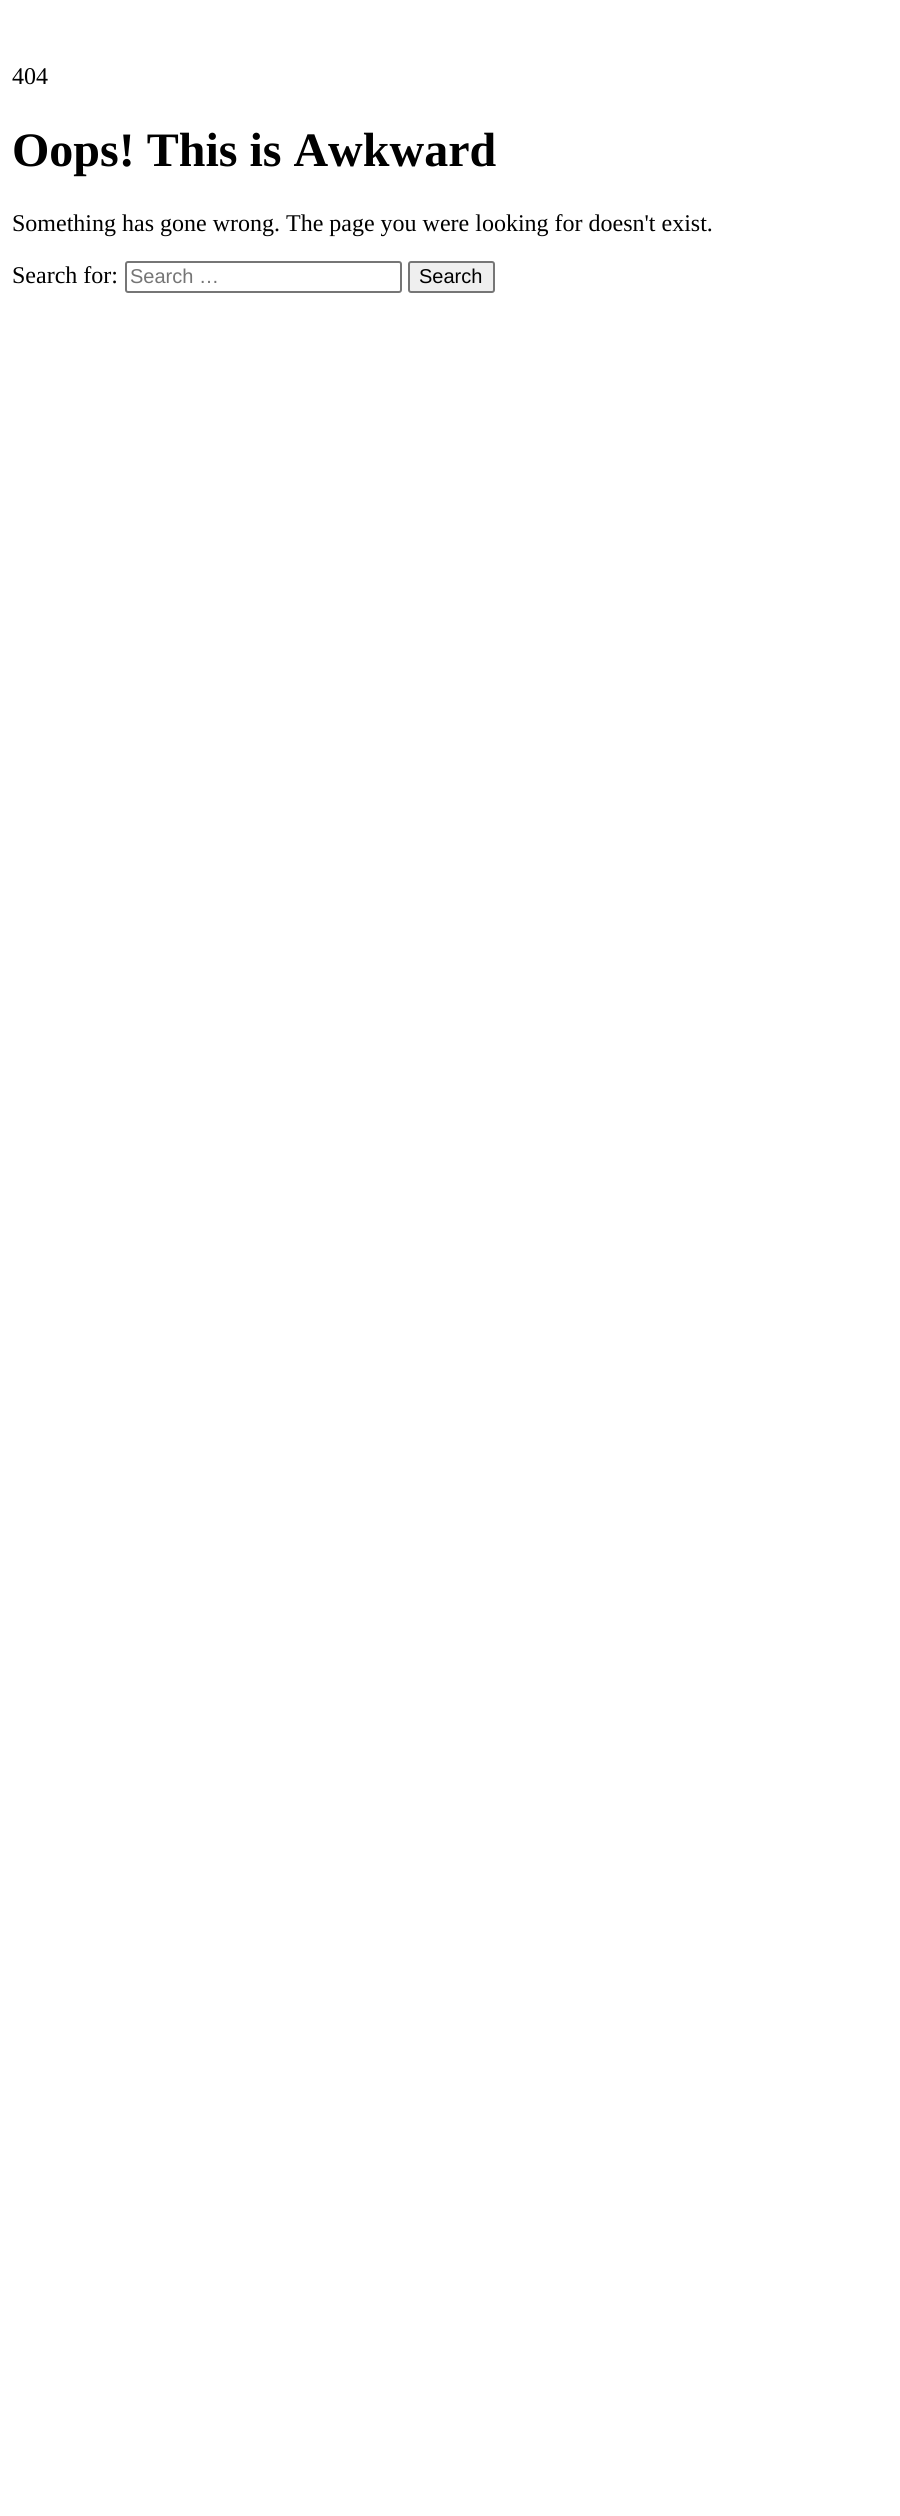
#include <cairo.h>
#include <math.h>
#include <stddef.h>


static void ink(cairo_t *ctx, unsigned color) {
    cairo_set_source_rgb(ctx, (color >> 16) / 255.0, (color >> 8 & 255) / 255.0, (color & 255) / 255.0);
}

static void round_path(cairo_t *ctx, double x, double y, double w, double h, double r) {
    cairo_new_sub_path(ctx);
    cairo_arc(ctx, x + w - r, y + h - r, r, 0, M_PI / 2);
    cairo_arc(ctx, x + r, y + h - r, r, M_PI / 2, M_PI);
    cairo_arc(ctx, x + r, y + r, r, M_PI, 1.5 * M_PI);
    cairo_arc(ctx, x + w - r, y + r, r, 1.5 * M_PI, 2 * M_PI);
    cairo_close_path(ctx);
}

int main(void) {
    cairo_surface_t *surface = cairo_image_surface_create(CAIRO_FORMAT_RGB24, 900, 2516);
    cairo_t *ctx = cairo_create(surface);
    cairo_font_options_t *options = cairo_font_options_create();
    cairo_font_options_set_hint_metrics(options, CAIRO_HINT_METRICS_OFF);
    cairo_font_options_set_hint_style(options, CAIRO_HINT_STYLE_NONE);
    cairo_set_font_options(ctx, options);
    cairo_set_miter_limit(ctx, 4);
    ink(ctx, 0xFFFFFF);
    cairo_paint(ctx);
    cairo_select_font_face(ctx, "Liberation Serif", CAIRO_FONT_SLANT_NORMAL, CAIRO_FONT_WEIGHT_NORMAL);
    cairo_set_font_size(ctx, 24);
    ink(ctx, 0x000000);
    cairo_move_to(ctx, 12, 84);
    cairo_show_text(ctx, "404");
    cairo_select_font_face(ctx, "Liberation Serif", CAIRO_FONT_SLANT_NORMAL, CAIRO_FONT_WEIGHT_BOLD);
    cairo_set_font_size(ctx, 48);
    cairo_move_to(ctx, 12, 166);
    cairo_show_text(ctx, "Oops! This is Awkward");
    cairo_select_font_face(ctx, "Liberation Serif", CAIRO_FONT_SLANT_NORMAL, CAIRO_FONT_WEIGHT_NORMAL);
    cairo_set_font_size(ctx, 24);
    cairo_move_to(ctx, 12, 231);
    cairo_show_text(ctx, "Something has gone wrong. The page you were looking for doesn't exist.");
    cairo_move_to(ctx, 12, 283);
    cairo_show_text(ctx, "Search for:");
    round_path(ctx, 126, 262, 275, 30, 2);
    ink(ctx, 0x767676);
    cairo_stroke(ctx);
    cairo_select_font_face(ctx, "Liberation Sans", CAIRO_FONT_SLANT_NORMAL, CAIRO_FONT_WEIGHT_NORMAL);
    cairo_set_font_size(ctx, 20);
    ink(ctx, 0x757575);
    cairo_move_to(ctx, 130, 283);
    cairo_show_text(ctx, "Search …");
    ink(ctx, 0xEFEFEF);
    round_path(ctx, 409, 262, 85, 30, 2);
    cairo_fill_preserve(ctx);
    ink(ctx, 0x767676);
    cairo_stroke(ctx);
    ink(ctx, 0x000000);
    cairo_move_to(ctx, 419, 283);
    cairo_show_text(ctx, "Search");
    cairo_surface_write_to_png(surface, "image.png");
    cairo_font_options_destroy(options);
    cairo_destroy(ctx);
    cairo_surface_destroy(surface);
    return 0;
}
